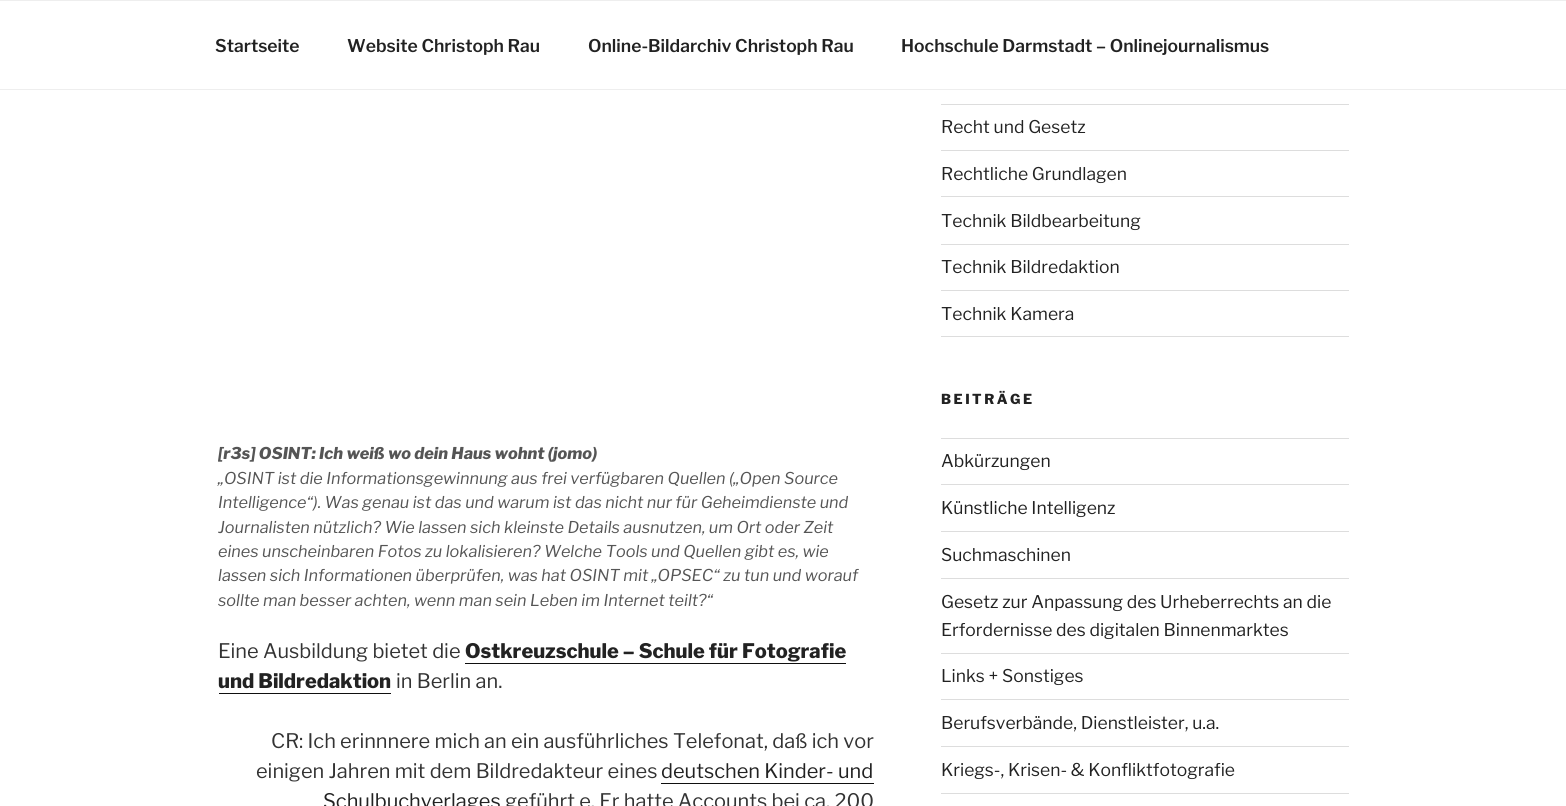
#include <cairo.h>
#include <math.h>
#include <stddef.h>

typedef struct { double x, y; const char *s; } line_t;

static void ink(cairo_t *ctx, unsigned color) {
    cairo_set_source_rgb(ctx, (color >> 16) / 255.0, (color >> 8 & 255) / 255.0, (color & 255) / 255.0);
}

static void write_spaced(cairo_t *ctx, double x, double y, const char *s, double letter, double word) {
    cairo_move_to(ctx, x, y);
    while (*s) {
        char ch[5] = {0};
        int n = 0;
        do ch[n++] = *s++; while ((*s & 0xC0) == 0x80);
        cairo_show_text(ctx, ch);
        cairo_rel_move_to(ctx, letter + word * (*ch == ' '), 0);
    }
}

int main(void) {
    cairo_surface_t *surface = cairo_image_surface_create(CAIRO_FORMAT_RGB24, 1566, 806);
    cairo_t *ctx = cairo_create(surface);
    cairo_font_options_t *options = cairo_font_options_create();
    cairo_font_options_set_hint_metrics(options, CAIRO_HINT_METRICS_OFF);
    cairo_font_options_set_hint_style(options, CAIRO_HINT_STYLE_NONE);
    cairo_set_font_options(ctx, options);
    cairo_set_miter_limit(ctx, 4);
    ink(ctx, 0xFFFFFF);
    cairo_paint(ctx);
    ink(ctx, 0xEEEEEE);
    cairo_rectangle(ctx, 0, 0, 1566, 1);
    cairo_fill(ctx);
    cairo_rectangle(ctx, 0, 89, 1566, 1);
    cairo_fill(ctx);
    cairo_select_font_face(ctx, "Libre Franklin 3 Thin", CAIRO_FONT_SLANT_NORMAL, CAIRO_FONT_WEIGHT_NORMAL);
    cairo_set_font_size(ctx, 17.5);
    ink(ctx, 0x222222);
    {
        static const line_t items[] = {
            {215, 52, "Startseite"},
            {347, 52, "Website Christoph Rau"},
            {588, 52, "Online-Bildarchiv Christoph Rau"},
            {901, 52, "Hochschule Darmstadt – Onlinejournalismus"},
        };
        for (size_t i = 0; i < sizeof items / sizeof *items; i++) {
            cairo_move_to(ctx, items[i].x, items[i].y);
            cairo_show_text(ctx, items[i].s);
        }
    }
    cairo_select_font_face(ctx, "Libre Franklin Thin", CAIRO_FONT_SLANT_ITALIC, CAIRO_FONT_WEIGHT_NORMAL);
    cairo_set_font_size(ctx, 16.25);
    ink(ctx, 0x555555);
    cairo_move_to(ctx, 218, 459);
    cairo_show_text(ctx, "[r3s] OSINT: Ich weiß wo dein Haus wohnt (jomo)");
    cairo_select_font_face(ctx, "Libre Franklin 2 Thin", CAIRO_FONT_SLANT_ITALIC, CAIRO_FONT_WEIGHT_NORMAL);
    {
        static const line_t items[] = {
            {218, 484, "„OSINT ist die Informationsgewinnung aus frei verfügbaren Quellen („Open Source"},
            {218, 508, "Intelligence“). Was genau ist das und warum ist das nicht nur für Geheimdienste und"},
            {218, 533, "Journalisten nützlich? Wie lassen sich kleinste Details ausnutzen, um Ort oder Zeit"},
            {218, 557, "eines unscheinbaren Fotos zu lokalisieren? Welche Tools und Quellen gibt es, wie"},
            {218, 581, "lassen sich Informationen überprüfen, was hat OSINT mit „OPSEC“ zu tun und worauf"},
            {218, 606, "sollte man besser achten, wenn man sein Leben im Internet teilt?“"},
        };
        for (size_t i = 0; i < sizeof items / sizeof *items; i++) {
            cairo_move_to(ctx, items[i].x, items[i].y);
            cairo_show_text(ctx, items[i].s);
        }
    }
    cairo_select_font_face(ctx, "Libre Franklin Thin", CAIRO_FONT_SLANT_NORMAL, CAIRO_FONT_WEIGHT_NORMAL);
    cairo_set_font_size(ctx, 20);
    ink(ctx, 0x333333);
    cairo_move_to(ctx, 218, 658);
    cairo_show_text(ctx, "Eine Ausbildung bietet die");
    cairo_select_font_face(ctx, "Libre Franklin 2 Thin", CAIRO_FONT_SLANT_NORMAL, CAIRO_FONT_WEIGHT_NORMAL);
    ink(ctx, 0x222222);
    cairo_move_to(ctx, 465, 658);
    cairo_show_text(ctx, "Ostkreuzschule – Schule für Fotografie");
    ink(ctx, 0x0F0F0F);
    cairo_rectangle(ctx, 465, 663, 381, 1);
    cairo_fill(ctx);
    ink(ctx, 0x222222);
    cairo_move_to(ctx, 218, 688);
    cairo_show_text(ctx, "und Bildredaktion");
    ink(ctx, 0x0F0F0F);
    cairo_rectangle(ctx, 219, 693, 172, 1);
    cairo_fill(ctx);
    cairo_select_font_face(ctx, "Libre Franklin Thin", CAIRO_FONT_SLANT_NORMAL, CAIRO_FONT_WEIGHT_NORMAL);
    ink(ctx, 0x333333);
    {
        static const line_t items[] = {
            {396, 688, "in Berlin an."},
            {271, 748, "CR: Ich erinnnere mich an ein ausführliches Telefonat, daß ich vor"},
            {256, 778, "einigen Jahren mit dem Bildredakteur eines"},
        };
        for (size_t i = 0; i < sizeof items / sizeof *items; i++) {
            cairo_move_to(ctx, items[i].x, items[i].y);
            cairo_show_text(ctx, items[i].s);
        }
    }
    ink(ctx, 0x222222);
    cairo_move_to(ctx, 661, 778);
    cairo_show_text(ctx, "deutschen Kinder- und");
    ink(ctx, 0x0F0F0F);
    cairo_rectangle(ctx, 661, 783, 213, 1);
    cairo_fill(ctx);
    ink(ctx, 0x222222);
    cairo_move_to(ctx, 323, 808);
    cairo_show_text(ctx, "Schulbuchverlages");
    ink(ctx, 0x333333);
    cairo_move_to(ctx, 505, 808);
    cairo_show_text(ctx, "geführt e. Er hatte Accounts bei ca. 200");
    ink(ctx, 0xDDDDDD);
    cairo_rectangle(ctx, 941, 104, 408, 1);
    cairo_fill(ctx);
    cairo_rectangle(ctx, 941, 150, 408, 1);
    cairo_fill(ctx);
    cairo_set_font_size(ctx, 17.5);
    ink(ctx, 0x222222);
    cairo_move_to(ctx, 941, 133);
    cairo_show_text(ctx, "Recht und Gesetz");
    ink(ctx, 0xDDDDDD);
    cairo_rectangle(ctx, 941, 196, 408, 1);
    cairo_fill(ctx);
    ink(ctx, 0x222222);
    cairo_move_to(ctx, 941, 180);
    cairo_show_text(ctx, "Rechtliche Grundlagen");
    ink(ctx, 0xDDDDDD);
    cairo_rectangle(ctx, 941, 244, 408, 1);
    cairo_fill(ctx);
    ink(ctx, 0x222222);
    cairo_move_to(ctx, 941, 227);
    cairo_show_text(ctx, "Technik Bildbearbeitung");
    ink(ctx, 0xDDDDDD);
    cairo_rectangle(ctx, 941, 290, 408, 1);
    cairo_fill(ctx);
    ink(ctx, 0x222222);
    cairo_move_to(ctx, 941, 273);
    cairo_show_text(ctx, "Technik Bildredaktion");
    ink(ctx, 0xDDDDDD);
    cairo_rectangle(ctx, 941, 336, 408, 1);
    cairo_fill(ctx);
    ink(ctx, 0x222222);
    cairo_move_to(ctx, 941, 320);
    cairo_show_text(ctx, "Technik Kamera");
    cairo_select_font_face(ctx, "Libre Franklin 2 Thin", CAIRO_FONT_SLANT_NORMAL, CAIRO_FONT_WEIGHT_NORMAL);
    cairo_set_font_size(ctx, 13.75);
    write_spaced(ctx, 941, 404, "BEITRÄGE", 2.5, 0);
    ink(ctx, 0xDDDDDD);
    cairo_rectangle(ctx, 941, 438, 408, 1);
    cairo_fill(ctx);
    cairo_rectangle(ctx, 941, 484, 408, 1);
    cairo_fill(ctx);
    cairo_select_font_face(ctx, "Libre Franklin Thin", CAIRO_FONT_SLANT_NORMAL, CAIRO_FONT_WEIGHT_NORMAL);
    cairo_set_font_size(ctx, 17.5);
    ink(ctx, 0x222222);
    cairo_move_to(ctx, 941, 467);
    cairo_show_text(ctx, "Abkürzungen");
    ink(ctx, 0xDDDDDD);
    cairo_rectangle(ctx, 941, 531, 408, 1);
    cairo_fill(ctx);
    ink(ctx, 0x222222);
    cairo_move_to(ctx, 941, 514);
    cairo_show_text(ctx, "Künstliche Intelligenz");
    ink(ctx, 0xDDDDDD);
    cairo_rectangle(ctx, 941, 578, 408, 1);
    cairo_fill(ctx);
    ink(ctx, 0x222222);
    cairo_move_to(ctx, 941, 561);
    cairo_show_text(ctx, "Suchmaschinen");
    ink(ctx, 0xDDDDDD);
    cairo_rectangle(ctx, 941, 653, 408, 1);
    cairo_fill(ctx);
    ink(ctx, 0x222222);
    cairo_move_to(ctx, 941, 608);
    cairo_show_text(ctx, "Gesetz zur Anpassung des Urheberrechts an die");
    cairo_move_to(ctx, 941, 636);
    cairo_show_text(ctx, "Erfordernisse des digitalen Binnenmarktes");
    ink(ctx, 0xDDDDDD);
    cairo_rectangle(ctx, 941, 699, 408, 1);
    cairo_fill(ctx);
    ink(ctx, 0x222222);
    cairo_move_to(ctx, 941, 682);
    cairo_show_text(ctx, "Links + Sonstiges");
    ink(ctx, 0xDDDDDD);
    cairo_rectangle(ctx, 941, 746, 408, 1);
    cairo_fill(ctx);
    ink(ctx, 0x222222);
    cairo_move_to(ctx, 941, 729);
    cairo_show_text(ctx, "Berufsverbände, Dienstleister, u.a.");
    ink(ctx, 0xDDDDDD);
    cairo_rectangle(ctx, 941, 793, 408, 1);
    cairo_fill(ctx);
    ink(ctx, 0x222222);
    cairo_move_to(ctx, 941, 776);
    cairo_show_text(ctx, "Kriegs-, Krisen- & Konfliktfotografie");
    cairo_surface_write_to_png(surface, "image.png");
    cairo_font_options_destroy(options);
    cairo_destroy(ctx);
    cairo_surface_destroy(surface);
    return 0;
}
